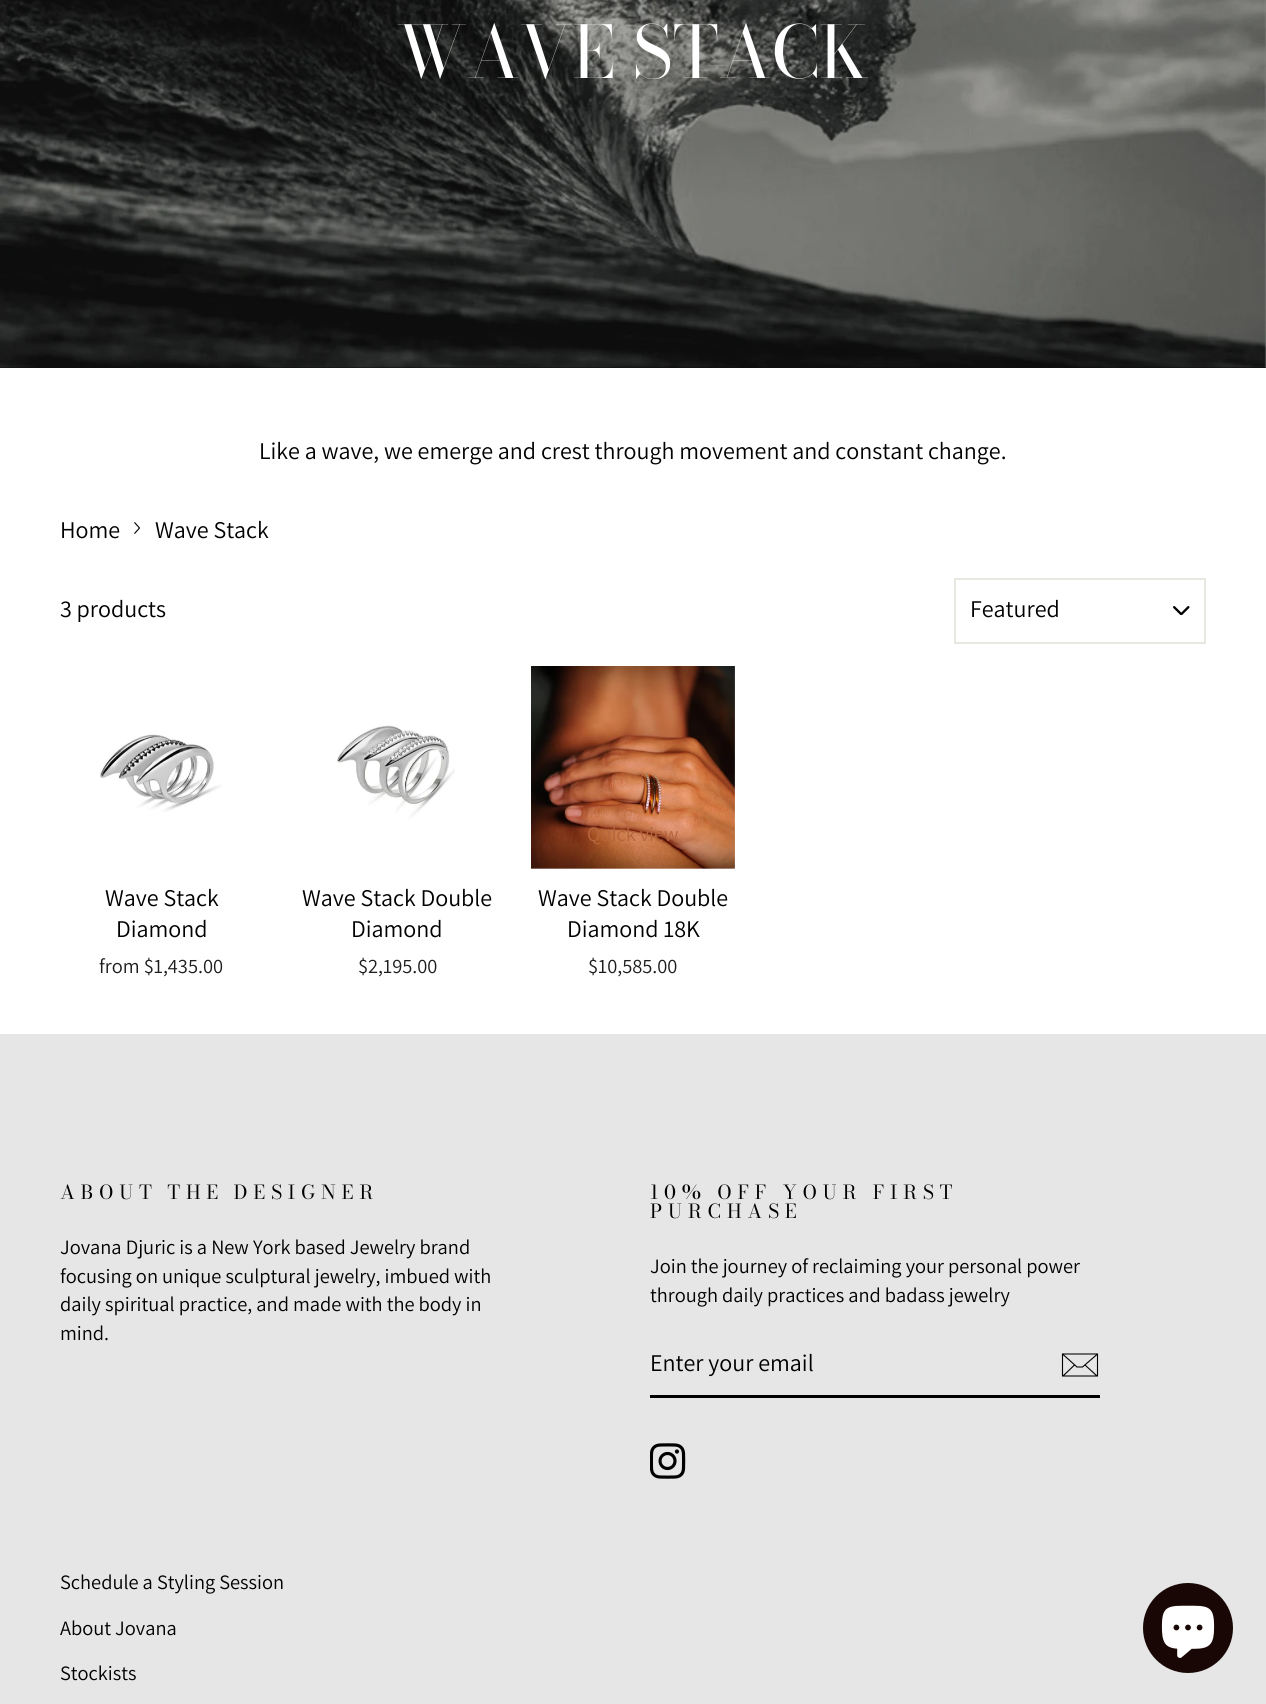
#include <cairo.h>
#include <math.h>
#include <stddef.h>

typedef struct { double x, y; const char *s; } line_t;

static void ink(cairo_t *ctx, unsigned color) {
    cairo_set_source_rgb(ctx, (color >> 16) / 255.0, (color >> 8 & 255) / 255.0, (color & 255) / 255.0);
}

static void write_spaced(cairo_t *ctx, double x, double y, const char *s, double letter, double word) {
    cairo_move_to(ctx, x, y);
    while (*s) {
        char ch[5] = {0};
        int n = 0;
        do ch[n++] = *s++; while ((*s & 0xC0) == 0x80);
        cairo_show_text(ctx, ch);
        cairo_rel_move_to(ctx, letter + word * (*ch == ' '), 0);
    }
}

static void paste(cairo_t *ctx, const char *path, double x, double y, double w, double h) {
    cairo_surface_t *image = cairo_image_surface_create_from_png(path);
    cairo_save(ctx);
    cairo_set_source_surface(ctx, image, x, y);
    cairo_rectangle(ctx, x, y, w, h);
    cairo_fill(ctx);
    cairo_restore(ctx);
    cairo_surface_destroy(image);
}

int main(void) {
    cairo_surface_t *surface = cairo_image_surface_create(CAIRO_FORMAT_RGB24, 1266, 1704);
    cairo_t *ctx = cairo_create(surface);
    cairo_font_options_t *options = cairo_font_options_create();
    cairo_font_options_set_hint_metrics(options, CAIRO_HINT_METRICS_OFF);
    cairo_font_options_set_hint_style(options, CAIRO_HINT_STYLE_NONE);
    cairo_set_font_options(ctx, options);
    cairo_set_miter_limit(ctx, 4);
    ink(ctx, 0xFFFFFF);
    cairo_paint(ctx);
    ink(ctx, 0x0E0E0E);
    cairo_rectangle(ctx, 0, 0, 1266, 368);
    cairo_fill(ctx);
    paste(ctx, "media/1.png", 0, 0, 1266, 368);
    cairo_select_font_face(ctx, "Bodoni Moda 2", CAIRO_FONT_SLANT_NORMAL, CAIRO_FONT_WEIGHT_NORMAL);
    cairo_set_font_size(ctx, 71.75);
    ink(ctx, 0xFFFFFF);
    cairo_move_to(ctx, 397, 78);
    cairo_show_text(ctx, "WAVE STACK");
    cairo_select_font_face(ctx, "Assistant", CAIRO_FONT_SLANT_NORMAL, CAIRO_FONT_WEIGHT_NORMAL);
    cairo_set_font_size(ctx, 24);
    ink(ctx, 0x000000);
    cairo_move_to(ctx, 259, 459);
    cairo_show_text(ctx, "Like a wave, we emerge and crest through movement and constant change.");
    cairo_move_to(ctx, 60, 538);
    cairo_show_text(ctx, "Home");
    paste(ctx, "media/2.png", 134, 522, 7, 12);
    cairo_move_to(ctx, 155, 538);
    cairo_show_text(ctx, "Wave Stack");
    cairo_move_to(ctx, 60, 617);
    cairo_show_text(ctx, "3 products");
    paste(ctx, "media/3.png", 1173, 606, 17, 9);
    cairo_rectangle(ctx, 955, 579, 250, 64);
    ink(ctx, 0xE8E8E1);
    cairo_stroke(ctx);
    ink(ctx, 0x000000);
    cairo_move_to(ctx, 970, 617);
    cairo_show_text(ctx, "Featured");
    paste(ctx, "media/4.png", 100, 734, 122, 78);
    cairo_move_to(ctx, 105, 906);
    cairo_show_text(ctx, "Wave Stack");
    cairo_move_to(ctx, 116, 937);
    cairo_show_text(ctx, "Diamond");
    cairo_set_font_size(ctx, 20.4);
    ink(ctx, 0x1C1D1D);
    cairo_move_to(ctx, 99, 973);
    cairo_show_text(ctx, "from $1,435.00");
    paste(ctx, "media/5.png", 337, 725, 118, 95);
    cairo_set_font_size(ctx, 24);
    ink(ctx, 0x000000);
    cairo_move_to(ctx, 302, 906);
    cairo_show_text(ctx, "Wave Stack Double");
    cairo_move_to(ctx, 351, 937);
    cairo_show_text(ctx, "Diamond");
    cairo_set_font_size(ctx, 20.4);
    ink(ctx, 0x1C1D1D);
    cairo_move_to(ctx, 358, 973);
    cairo_show_text(ctx, "$2,195.00");
    paste(ctx, "media/6.png", 531, 666, 204, 203);
    ink(ctx, 0xB5653C);
    cairo_move_to(ctx, 587, 841);
    cairo_show_text(ctx, "Quick view");
    cairo_set_font_size(ctx, 24);
    ink(ctx, 0x000000);
    cairo_move_to(ctx, 538, 906);
    cairo_show_text(ctx, "Wave Stack Double");
    cairo_move_to(ctx, 567, 937);
    cairo_show_text(ctx, "Diamond 18K");
    cairo_set_font_size(ctx, 20.4);
    ink(ctx, 0x1C1D1D);
    cairo_move_to(ctx, 588, 973);
    cairo_show_text(ctx, "$10,585.00");
    ink(ctx, 0xE6E6E6);
    cairo_rectangle(ctx, 0, 1034, 1266, 670);
    cairo_fill(ctx);
    cairo_select_font_face(ctx, "Bodoni Moda", CAIRO_FONT_SLANT_NORMAL, CAIRO_FONT_WEIGHT_NORMAL);
    cairo_set_font_size(ctx, 19.25);
    ink(ctx, 0x000000);
    write_spaced(ctx, 60, 1199, "ABOUT THE DESIGNER", 5.75, -1);
    cairo_select_font_face(ctx, "Assistant", CAIRO_FONT_SLANT_NORMAL, CAIRO_FONT_WEIGHT_NORMAL);
    cairo_set_font_size(ctx, 20.4);
    {
        static const line_t items[] = {
            {60, 1254, "Jovana Djuric is a New York based Jewelry brand"},
            {60, 1283, "focusing on unique sculptural jewelry, imbued with"},
            {60, 1311, "daily spiritual practice, and made with the body in"},
            {60, 1340, "mind."},
        };
        for (size_t i = 0; i < sizeof items / sizeof *items; i++) {
            cairo_move_to(ctx, items[i].x, items[i].y);
            cairo_show_text(ctx, items[i].s);
        }
    }
    cairo_select_font_face(ctx, "Bodoni Moda", CAIRO_FONT_SLANT_NORMAL, CAIRO_FONT_WEIGHT_NORMAL);
    cairo_set_font_size(ctx, 19.25);
    write_spaced(ctx, 650, 1199, "10% OFF YOUR FIRST", 5.75, 0);
    write_spaced(ctx, 650, 1218, "PURCHASE", 5.75, 0);
    cairo_select_font_face(ctx, "Assistant", CAIRO_FONT_SLANT_NORMAL, CAIRO_FONT_WEIGHT_NORMAL);
    cairo_set_font_size(ctx, 20.4);
    cairo_move_to(ctx, 650, 1273);
    cairo_show_text(ctx, "Join the journey of reclaiming your personal power");
    cairo_move_to(ctx, 650, 1302);
    cairo_show_text(ctx, "through daily practices and badass jewelry");
    cairo_rectangle(ctx, 650, 1395, 450, 3);
    cairo_fill(ctx);
    cairo_set_font_size(ctx, 24);
    cairo_move_to(ctx, 650, 1371);
    cairo_show_text(ctx, "Enter your email");
    cairo_new_path(ctx);
    cairo_move_to(ctx, 1097.5, 1376);
    cairo_line_to(ctx, 1062.5, 1376);
    cairo_line_to(ctx, 1062.5, 1354);
    cairo_line_to(ctx, 1097.5, 1354);
    cairo_close_path(ctx);
    cairo_move_to(ctx, 1062.5, 1354);
    cairo_line_to(ctx, 1077, 1367);
    cairo_line_to(ctx, 1082.5, 1367);
    cairo_line_to(ctx, 1097.5, 1354);
    cairo_move_to(ctx, 1074.5, 1365);
    cairo_line_to(ctx, 1063, 1376);
    cairo_move_to(ctx, 1097, 1376);
    cairo_line_to(ctx, 1085, 1365);
    cairo_set_line_width(ctx, 1.1);
    cairo_stroke(ctx);
    paste(ctx, "media/7.png", 650, 1443, 36, 36);
    cairo_set_font_size(ctx, 20.4);
    {
        static const line_t items[] = {
            {60, 1589, "Schedule a Styling Session"},
            {60, 1635, "About Jovana"},
            {60, 1680, "Stockists"},
        };
        for (size_t i = 0; i < sizeof items / sizeof *items; i++) {
            cairo_move_to(ctx, items[i].x, items[i].y);
            cairo_show_text(ctx, items[i].s);
        }
    }
    ink(ctx, 0x180704);
    cairo_new_path(ctx);
    cairo_arc(ctx, 1188, 1628, 45, 0, 2 * M_PI);
    cairo_fill(ctx);
    paste(ctx, "media/8.png", 1161, 1605, 54, 53);
    cairo_surface_write_to_png(surface, "image.png");
    cairo_font_options_destroy(options);
    cairo_destroy(ctx);
    cairo_surface_destroy(surface);
    return 0;
}
